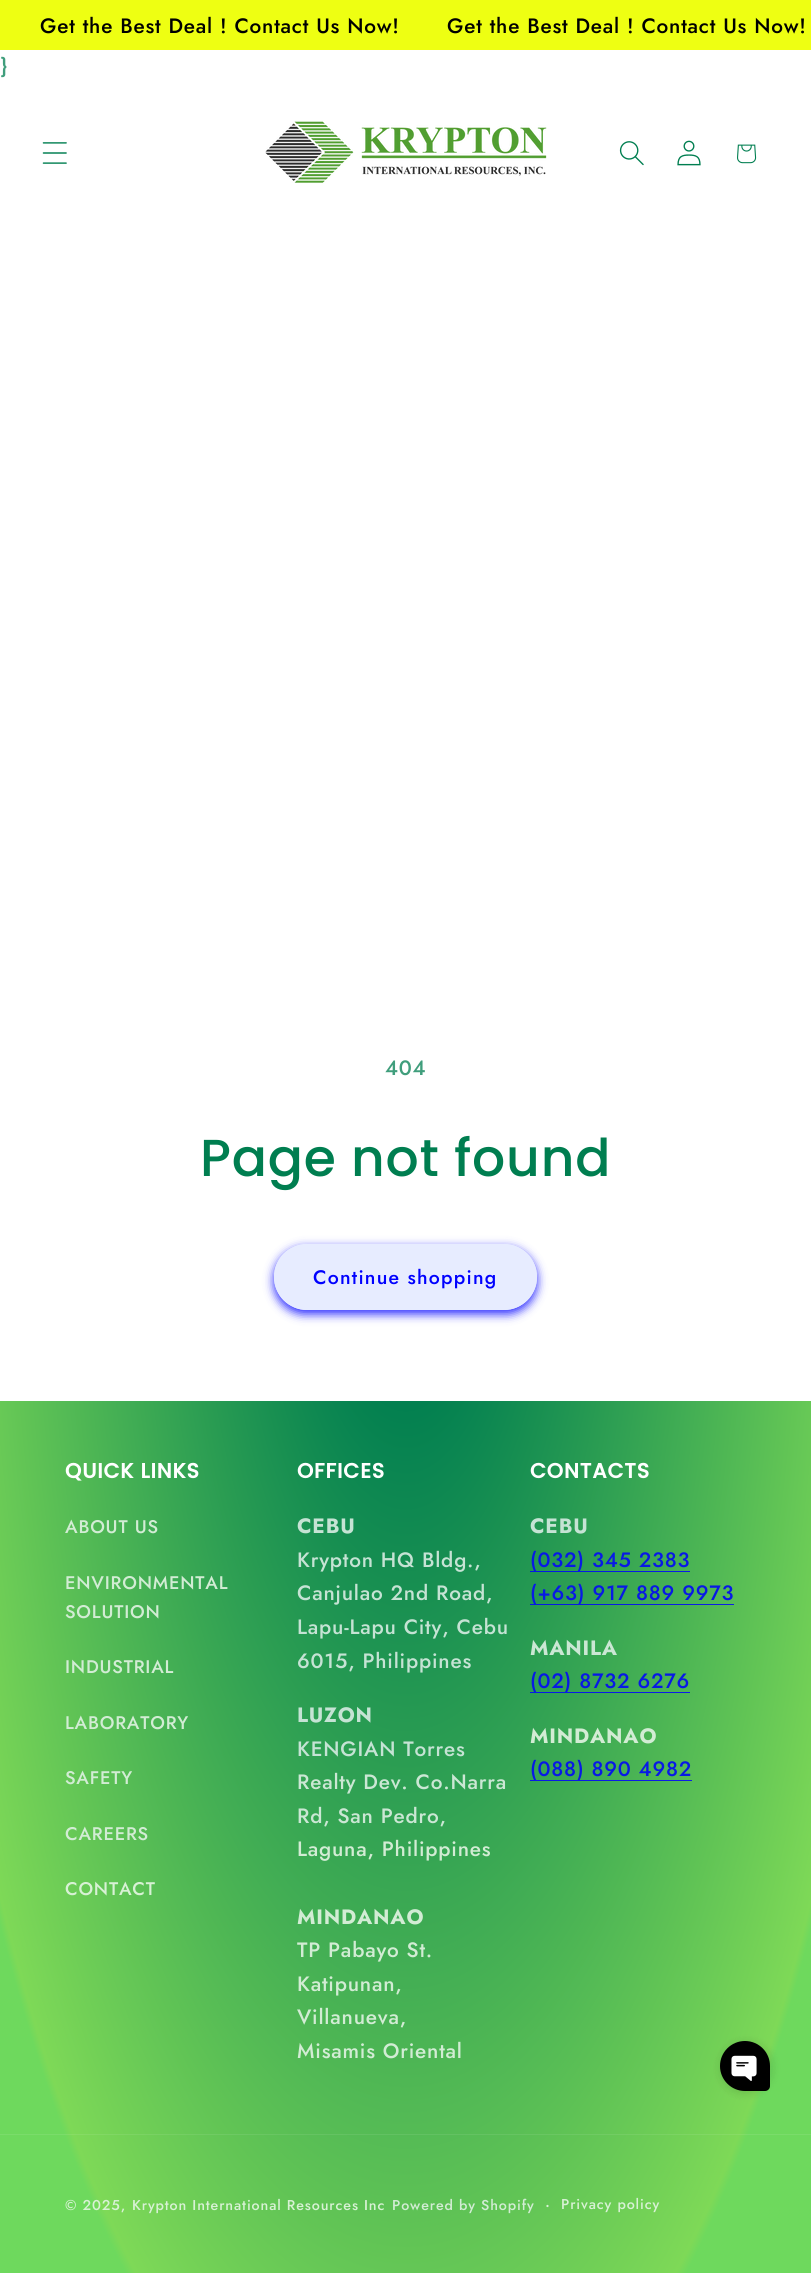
#include <cairo.h>
#include <math.h>
#include <stddef.h>

typedef struct { double x, y; const char *s; } line_t;

static void ink(cairo_t *ctx, unsigned color) {
    cairo_set_source_rgb(ctx, (color >> 16) / 255.0, (color >> 8 & 255) / 255.0, (color & 255) / 255.0);
}

static void write_spaced(cairo_t *ctx, double x, double y, const char *s, double letter, double word) {
    cairo_move_to(ctx, x, y);
    while (*s) {
        char ch[5] = {0};
        int n = 0;
        do ch[n++] = *s++; while ((*s & 0xC0) == 0x80);
        cairo_show_text(ctx, ch);
        cairo_rel_move_to(ctx, letter + word * (*ch == ' '), 0);
    }
}

static void round_path(cairo_t *ctx, double x, double y, double w, double h, double r) {
    cairo_new_sub_path(ctx);
    cairo_arc(ctx, x + w - r, y + h - r, r, 0, M_PI / 2);
    cairo_arc(ctx, x + r, y + h - r, r, M_PI / 2, M_PI);
    cairo_arc(ctx, x + r, y + r, r, M_PI, 1.5 * M_PI);
    cairo_arc(ctx, x + w - r, y + r, r, 1.5 * M_PI, 2 * M_PI);
    cairo_close_path(ctx);
}

static void blur_box(cairo_t *ctx, double x, double y, double w, double h, double r, double blur, double alpha) {
    cairo_push_group_with_content(ctx, CAIRO_CONTENT_ALPHA);
    cairo_set_operator(ctx, CAIRO_OPERATOR_SOURCE);
    for (int i = 15; i >= -15 && fmin(w, h) + blur * i / 3 > 0; i -= 2) {
        double e = blur * i / 6;
        cairo_set_source_rgba(ctx, 0, 0, 0, alpha * erfc((i - 1) / 8.5) / 2);
        round_path(ctx, x - e, y - e, w + 2 * e, h + 2 * e, fmax(0, fmin(r + e + blur * .6, fmin(w, h) / 2 + e)));
        cairo_fill(ctx);
    }
    cairo_pattern_t *soft = cairo_pop_group(ctx);
    cairo_mask(ctx, soft);
    cairo_pattern_destroy(soft);
}

static void paste(cairo_t *ctx, const char *path, double x, double y, double w, double h) {
    cairo_surface_t *image = cairo_image_surface_create_from_png(path);
    cairo_save(ctx);
    cairo_set_source_surface(ctx, image, x, y);
    cairo_rectangle(ctx, x, y, w, h);
    cairo_fill(ctx);
    cairo_restore(ctx);
    cairo_surface_destroy(image);
}

int main(void) {
    cairo_surface_t *surface = cairo_image_surface_create(CAIRO_FORMAT_RGB24, 811, 2273);
    cairo_t *ctx = cairo_create(surface);
    cairo_font_options_t *options = cairo_font_options_create();
    cairo_font_options_set_hint_metrics(options, CAIRO_HINT_METRICS_OFF);
    cairo_font_options_set_hint_style(options, CAIRO_HINT_STYLE_NONE);
    cairo_set_font_options(ctx, options);
    cairo_set_miter_limit(ctx, 4);
    cairo_pattern_t *gradient;
    ink(ctx, 0xFFFFFF);
    cairo_paint(ctx);
    ink(ctx, 0xEEFF12);
    cairo_rectangle(ctx, 0, 0, 811, 50);
    cairo_fill(ctx);
    cairo_select_font_face(ctx, "Jost Medium", CAIRO_FONT_SLANT_NORMAL, CAIRO_FONT_WEIGHT_NORMAL);
    cairo_set_font_size(ctx, 20.75);
    ink(ctx, 0x000000);
    write_spaced(ctx, 40, 33, "Get the Best Deal ! Contact Us Now!", 0.8, 0);
    write_spaced(ctx, 447, 33, "Get the Best Deal ! Contact Us Now!", 0.8, 0);
    ink(ctx, 0x409E7C);
    write_spaced(ctx, 0, 73, "}", 0.8, 0);
    paste(ctx, "media/1.png", 42, 142, 25, 22);
    paste(ctx, "media/2.png", 265, 121, 282, 62);
    paste(ctx, "media/3.png", 619, 141, 25, 25);
    paste(ctx, "media/4.png", 677, 140, 24, 26);
    paste(ctx, "media/5.png", 737, 144, 20, 20);
    write_spaced(ctx, 385, 1075, "404", 0.8, 0);
    cairo_select_font_face(ctx, "Poppins Medium", CAIRO_FONT_SLANT_NORMAL, CAIRO_FONT_WEIGHT_NORMAL);
    cairo_set_font_size(ctx, 52);
    ink(ctx, 0x007E50);
    write_spaced(ctx, 200, 1176, "Page not found", 0.8, 0);
    ink(ctx, 0x0000FF);
    blur_box(ctx, 274, 1248, 263, 66, 33, 5, 0.85);
    ink(ctx, 0xE7ECFF);
    round_path(ctx, 274, 1244, 263, 66, 33);
    cairo_fill(ctx);
    round_path(ctx, 276, 1246, 259, 62, 31);
    cairo_set_line_width(ctx, 4);
    cairo_stroke(ctx);
    cairo_select_font_face(ctx, "Jost Medium", CAIRO_FONT_SLANT_NORMAL, CAIRO_FONT_WEIGHT_NORMAL);
    cairo_set_font_size(ctx, 19.5);
    ink(ctx, 0x0000FF);
    write_spaced(ctx, 313, 1284, "Continue shopping", 1.25, 0);
    gradient = cairo_pattern_create_radial(0, 0, 0, 0, 0, 1);
    cairo_pattern_set_matrix(gradient, &(cairo_matrix_t){1.0 / 573, 0, 0, 1.0 / 1607, -1.0 * 406 / 573, -1.0 * 1137 / 1607});
    cairo_pattern_add_color_stop_rgba(gradient, 0.15, 0, 0.494, 0.314, 1);
    cairo_pattern_add_color_stop_rgba(gradient, 0.85, 0.494, 0.851, 0.341, 1);
    cairo_pattern_add_color_stop_rgba(gradient, 0.86, 0.431, 0.851, 0.365, 1);
    cairo_set_source(ctx, gradient);
    cairo_pattern_destroy(gradient);
    cairo_rectangle(ctx, 0, 1401, 811, 872);
    cairo_fill(ctx);
    gradient = cairo_pattern_create_radial(0, 0, 0, 0, 0, 1);
    cairo_pattern_set_matrix(gradient, &(cairo_matrix_t){1.0 / 573, 0, 0, 1.0 / 1607, -1.0 * 406 / 573, -1.0 * 1137 / 1607});
    cairo_pattern_add_color_stop_rgba(gradient, 0.15, 0.078, 0.533, 0.369, 1);
    cairo_pattern_add_color_stop_rgba(gradient, 0.85, 0.533, 0.863, 0.392, 1);
    cairo_pattern_add_color_stop_rgba(gradient, 0.86, 0.478, 0.863, 0.416, 1);
    cairo_set_source(ctx, gradient);
    cairo_pattern_destroy(gradient);
    cairo_rectangle(ctx, 0, 2134, 811, 1);
    cairo_fill(ctx);
    gradient = cairo_pattern_create_radial(0, 0, 0, 0, 0, 1);
    cairo_pattern_set_matrix(gradient, &(cairo_matrix_t){1.0 / 573, 0, 0, 1.0 / 1607, -1.0 * 406 / 573, -1.0 * 1137 / 1607});
    cairo_pattern_add_color_stop_rgba(gradient, 0.15, 0, 0.075, 0.898, 1);
    cairo_pattern_add_color_stop_rgba(gradient, 0.85, 0.075, 0.129, 0.902, 1);
    cairo_pattern_add_color_stop_rgba(gradient, 0.86, 0.067, 0.129, 0.906, 1);
    cairo_set_source(ctx, gradient);
    cairo_pattern_destroy(gradient);
    cairo_rectangle(ctx, 530, 1780, 162, 1);
    cairo_fill(ctx);
    cairo_rectangle(ctx, 530, 1692, 160, 1);
    cairo_fill(ctx);
    cairo_rectangle(ctx, 530, 1604, 204, 1);
    cairo_fill(ctx);
    cairo_rectangle(ctx, 530, 1571, 160, 1);
    cairo_fill(ctx);
    cairo_select_font_face(ctx, "Poppins", CAIRO_FONT_SLANT_NORMAL, CAIRO_FONT_WEIGHT_BOLD);
    cairo_set_font_size(ctx, 20.75);
    ink(ctx, 0xFFFFFF);
    write_spaced(ctx, 65, 1478, "QUICK LINKS", 0.8, 0);
    cairo_select_font_face(ctx, "Jost Medium", CAIRO_FONT_SLANT_NORMAL, CAIRO_FONT_WEIGHT_NORMAL);
    cairo_set_font_size(ctx, 18.25);
    ink(ctx, 0xD2ECD4);
    {
        static const line_t items[] = {
            {65, 1533, "ABOUT US"},
            {65, 1589, "ENVIRONMENTAL"},
            {65, 1618, "SOLUTION"},
            {65, 1673, "INDUSTRIAL"},
            {65, 1729, "LABORATORY"},
            {65, 1784, "SAFETY"},
            {65, 1840, "CAREERS"},
        };
        for (size_t i = 0; i < sizeof items / sizeof *items; i++) {
            write_spaced(ctx, items[i].x, items[i].y, items[i].s, 0.8, 0);
        }
    }
    ink(ctx, 0xD8F1D5);
    write_spaced(ctx, 65, 1895, "CONTACT", 0.8, 0);
    cairo_select_font_face(ctx, "Poppins", CAIRO_FONT_SLANT_NORMAL, CAIRO_FONT_WEIGHT_BOLD);
    cairo_set_font_size(ctx, 20.75);
    ink(ctx, 0xFFFFFF);
    write_spaced(ctx, 297, 1478, "OFFICES", 0.8, 0);
    cairo_select_font_face(ctx, "Jost", CAIRO_FONT_SLANT_NORMAL, CAIRO_FONT_WEIGHT_BOLD);
    ink(ctx, 0xC5E3D4);
    write_spaced(ctx, 297, 1533, "CEBU", 0.8, 0);
    cairo_select_font_face(ctx, "Jost Medium", CAIRO_FONT_SLANT_NORMAL, CAIRO_FONT_WEIGHT_NORMAL);
    {
        static const line_t items[] = {
            {297, 1567, "Krypton HQ Bldg.,"},
            {297, 1600, "Canjulao 2nd Road,"},
            {297, 1634, "Lapu-Lapu City, Cebu"},
            {297, 1668, "6015, Philippines"},
        };
        for (size_t i = 0; i < sizeof items / sizeof *items; i++) {
            write_spaced(ctx, items[i].x, items[i].y, items[i].s, 0.8, 0);
        }
    }
    cairo_select_font_face(ctx, "Jost", CAIRO_FONT_SLANT_NORMAL, CAIRO_FONT_WEIGHT_BOLD);
    write_spaced(ctx, 297, 1722, "LUZON", 0.8, 0);
    cairo_select_font_face(ctx, "Jost Medium", CAIRO_FONT_SLANT_NORMAL, CAIRO_FONT_WEIGHT_NORMAL);
    write_spaced(ctx, 297, 1756, "KENGIAN Torres", 0.8, 0);
    ink(ctx, 0xCBE7D4);
    write_spaced(ctx, 297, 1789, "Realty Dev. Co.Narra", 0.8, 0);
    write_spaced(ctx, 297, 1823, "Rd, San Pedro,", 0.8, 0);
    ink(ctx, 0xD2ECD4);
    write_spaced(ctx, 297, 1856, "Laguna, Philippines", 0.8, 0);
    cairo_select_font_face(ctx, "Jost", CAIRO_FONT_SLANT_NORMAL, CAIRO_FONT_WEIGHT_BOLD);
    write_spaced(ctx, 297, 1924, "MINDANAO", 0.8, 0);
    cairo_select_font_face(ctx, "Jost Medium", CAIRO_FONT_SLANT_NORMAL, CAIRO_FONT_WEIGHT_NORMAL);
    {
        static const line_t items[] = {
            {297, 1957, "TP Pabayo St."},
            {297, 1991, "Katipunan,"},
            {297, 2024, "Villanueva,"},
            {297, 2058, "Misamis Oriental"},
        };
        for (size_t i = 0; i < sizeof items / sizeof *items; i++) {
            write_spaced(ctx, items[i].x, items[i].y, items[i].s, 0.8, 0);
        }
    }
    cairo_select_font_face(ctx, "Poppins", CAIRO_FONT_SLANT_NORMAL, CAIRO_FONT_WEIGHT_BOLD);
    ink(ctx, 0xFFFFFF);
    write_spaced(ctx, 530, 1478, "CONTACTS", 0.8, 0);
    cairo_select_font_face(ctx, "Jost", CAIRO_FONT_SLANT_NORMAL, CAIRO_FONT_WEIGHT_BOLD);
    ink(ctx, 0xC5E3D4);
    write_spaced(ctx, 530, 1533, "CEBU", 0.8, 0);
    cairo_select_font_face(ctx, "Jost Medium", CAIRO_FONT_SLANT_NORMAL, CAIRO_FONT_WEIGHT_NORMAL);
    ink(ctx, 0x0819E5);
    write_spaced(ctx, 530, 1567, "(032) 345 2383", 0.8, 0);
    write_spaced(ctx, 530, 1600, "(+63) 917 889 9973", 0.8, 0);
    cairo_select_font_face(ctx, "Jost", CAIRO_FONT_SLANT_NORMAL, CAIRO_FONT_WEIGHT_BOLD);
    ink(ctx, 0xCBE7D4);
    write_spaced(ctx, 530, 1655, "MANILA", 0.8, 0);
    cairo_select_font_face(ctx, "Jost Medium", CAIRO_FONT_SLANT_NORMAL, CAIRO_FONT_WEIGHT_NORMAL);
    ink(ctx, 0x0819E5);
    write_spaced(ctx, 530, 1688, "(02) 8732 6276", 0.8, 0);
    cairo_select_font_face(ctx, "Jost", CAIRO_FONT_SLANT_NORMAL, CAIRO_FONT_WEIGHT_BOLD);
    ink(ctx, 0xD2ECD4);
    write_spaced(ctx, 530, 1743, "MINDANAO", 0.8, 0);
    cairo_select_font_face(ctx, "Jost Medium", CAIRO_FONT_SLANT_NORMAL, CAIRO_FONT_WEIGHT_NORMAL);
    ink(ctx, 0x0819E5);
    write_spaced(ctx, 530, 1776, "(088) 890 4982", 0.8, 0);
    cairo_set_font_size(ctx, 14.25);
    ink(ctx, 0xD8F1D5);
    write_spaced(ctx, 65, 2210, "© 2025,", 0.9, 0);
    write_spaced(ctx, 132, 2210, "Krypton International Resources Inc", 0.9, 0);
    ink(ctx, 0xD2ECD4);
    write_spaced(ctx, 392, 2210, "Powered by Shopify", 0.9, 0);
    cairo_set_font_size(ctx, 16);
    ink(ctx, 0xD8F1D5);
    write_spaced(ctx, 545, 2210, "·", 0.9, 0);
    cairo_set_font_size(ctx, 14.25);
    write_spaced(ctx, 561, 2209, "Privacy policy", 0.9, 0);
    ink(ctx, 0x000000);
    blur_box(ctx, 720, 2041, 54, 54, 27, 4.5, 0.07);
    blur_box(ctx, 720, 2043, 50, 50, 25, 5, 0.05);
    paste(ctx, "media/6.png", 720, 2041, 50, 50);
    cairo_surface_write_to_png(surface, "image.png");
    cairo_font_options_destroy(options);
    cairo_destroy(ctx);
    cairo_surface_destroy(surface);
    return 0;
}
